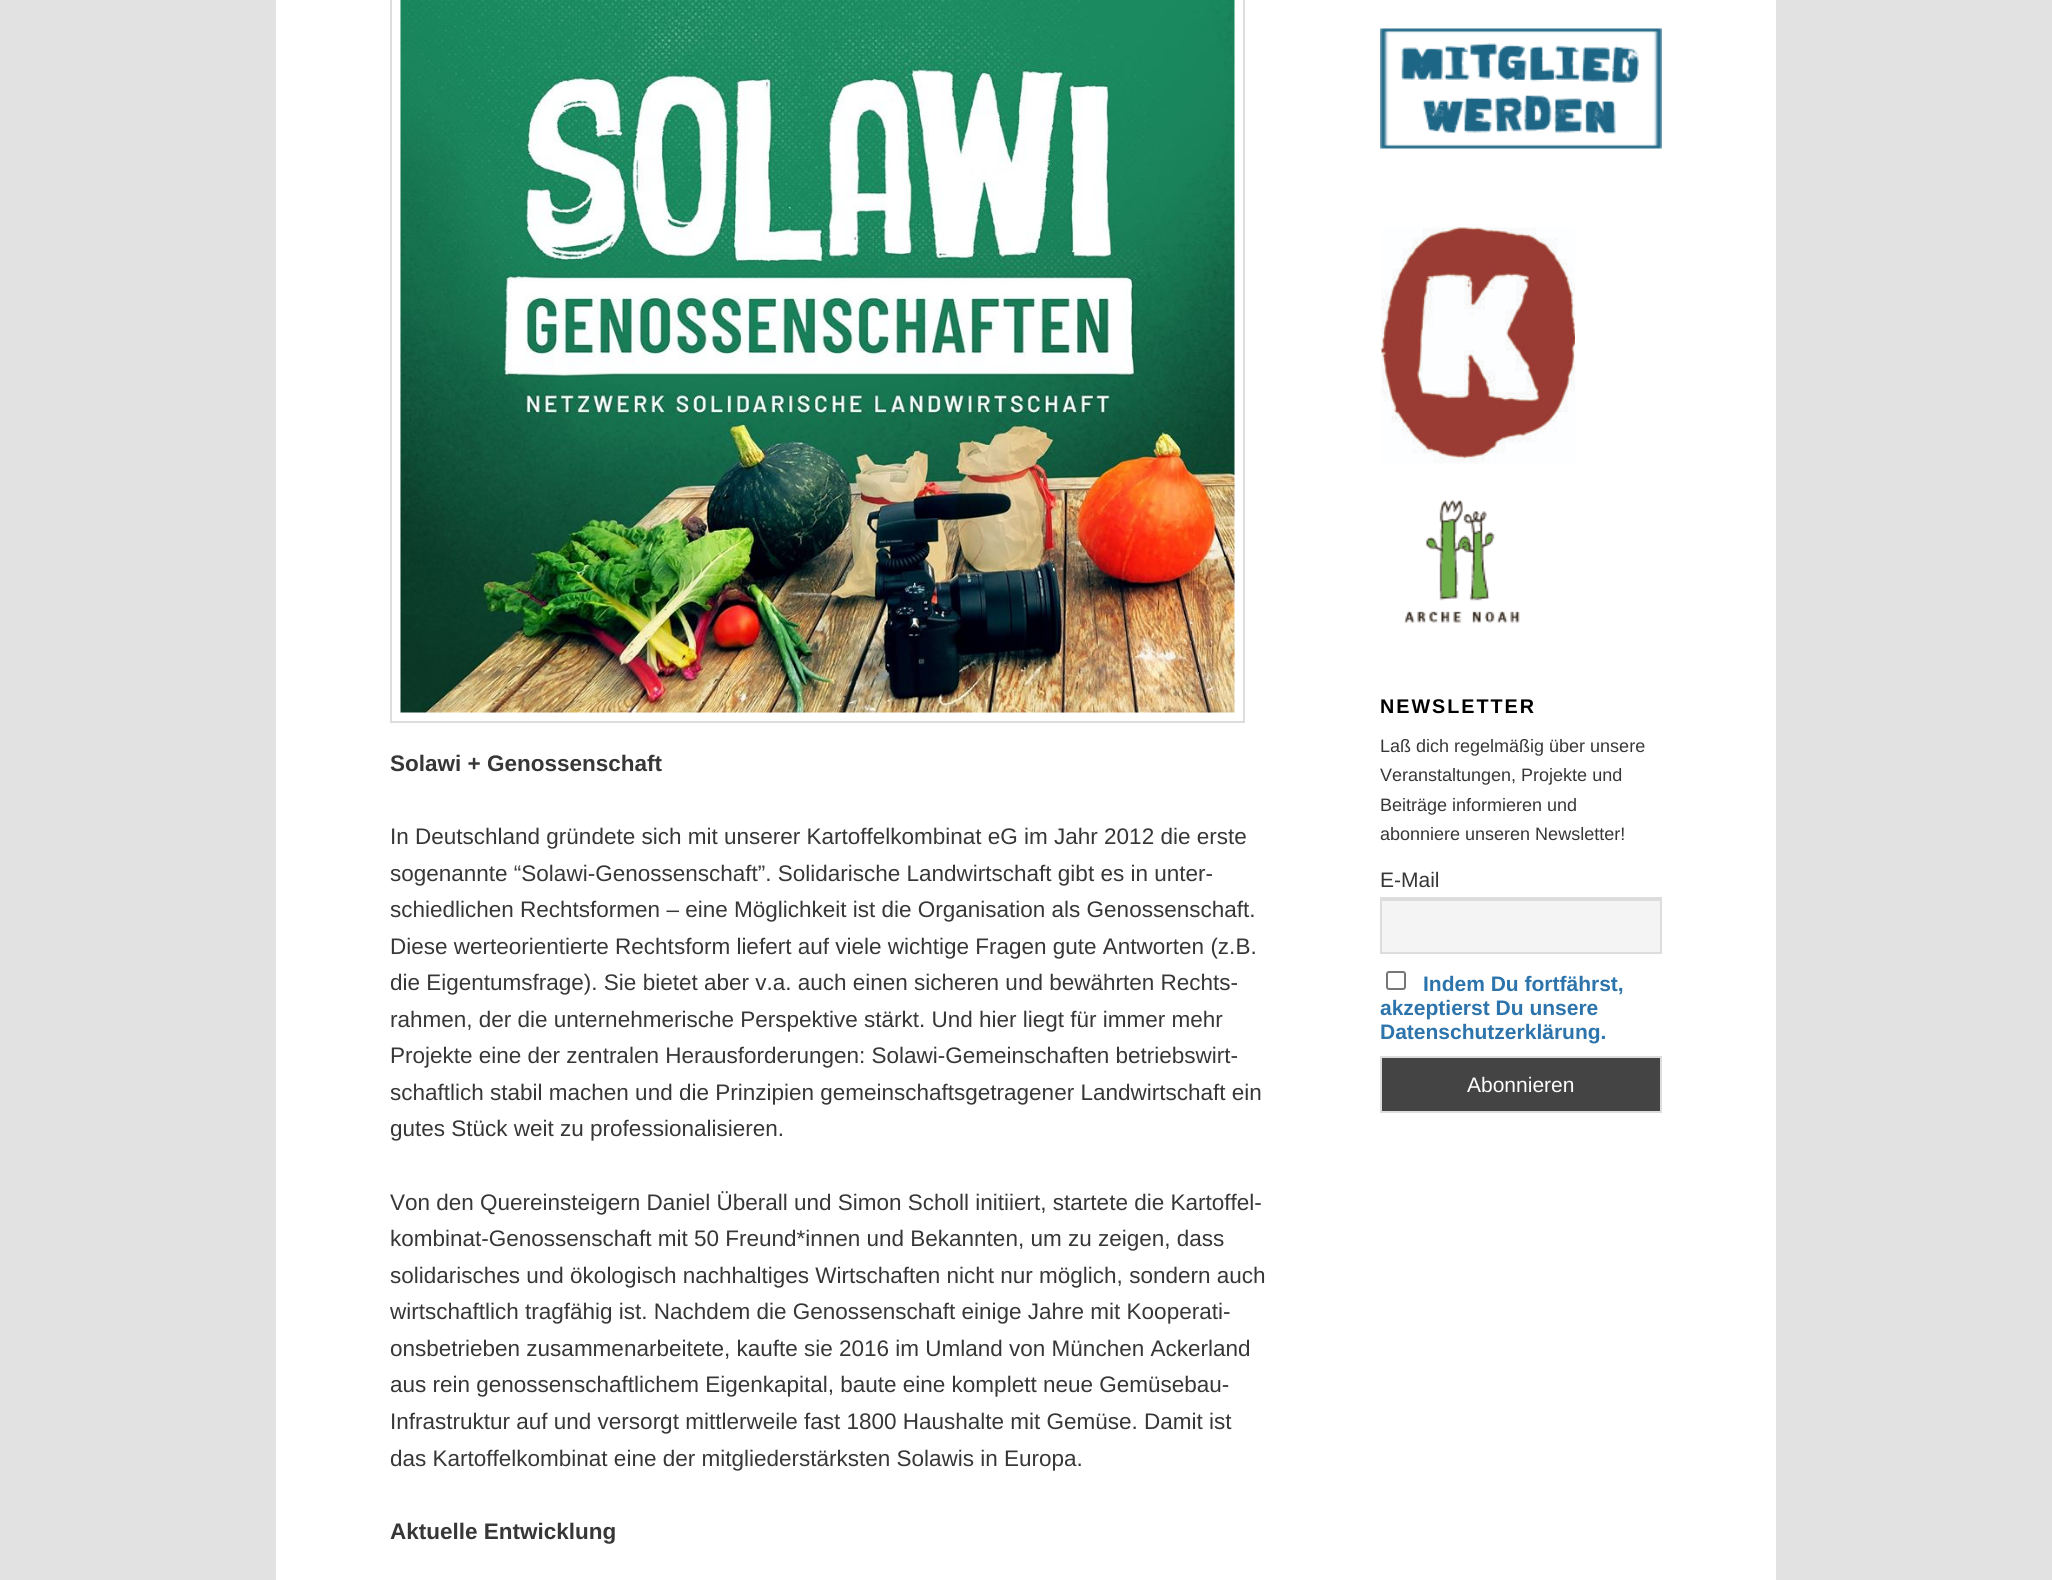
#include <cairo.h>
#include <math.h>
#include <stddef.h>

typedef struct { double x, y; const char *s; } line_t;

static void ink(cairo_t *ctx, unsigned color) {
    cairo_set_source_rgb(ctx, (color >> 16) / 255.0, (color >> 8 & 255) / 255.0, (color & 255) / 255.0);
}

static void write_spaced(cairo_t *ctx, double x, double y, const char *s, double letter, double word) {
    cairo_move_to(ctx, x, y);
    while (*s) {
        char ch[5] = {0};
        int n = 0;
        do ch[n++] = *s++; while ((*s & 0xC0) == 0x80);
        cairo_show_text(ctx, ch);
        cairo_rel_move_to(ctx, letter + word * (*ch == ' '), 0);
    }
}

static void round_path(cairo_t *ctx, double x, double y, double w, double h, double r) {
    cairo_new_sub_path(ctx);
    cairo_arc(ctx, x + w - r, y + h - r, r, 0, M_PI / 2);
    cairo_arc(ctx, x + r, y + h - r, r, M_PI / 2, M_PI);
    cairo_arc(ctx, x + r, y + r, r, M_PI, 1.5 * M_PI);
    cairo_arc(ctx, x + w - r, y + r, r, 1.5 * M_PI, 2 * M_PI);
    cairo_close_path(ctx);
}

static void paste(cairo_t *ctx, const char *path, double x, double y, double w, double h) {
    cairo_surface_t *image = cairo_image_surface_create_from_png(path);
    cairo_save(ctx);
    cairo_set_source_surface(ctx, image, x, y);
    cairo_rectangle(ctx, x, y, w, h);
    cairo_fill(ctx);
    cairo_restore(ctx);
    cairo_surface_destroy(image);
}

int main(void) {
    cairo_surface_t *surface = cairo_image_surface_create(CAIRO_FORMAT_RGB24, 2052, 1580);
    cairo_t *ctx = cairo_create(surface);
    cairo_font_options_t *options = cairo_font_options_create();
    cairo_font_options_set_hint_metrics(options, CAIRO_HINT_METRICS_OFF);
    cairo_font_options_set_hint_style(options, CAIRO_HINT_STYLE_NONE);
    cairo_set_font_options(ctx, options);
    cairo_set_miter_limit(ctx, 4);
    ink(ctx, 0xE2E2E2);
    cairo_paint(ctx);
    ink(ctx, 0xFFFFFF);
    cairo_rectangle(ctx, 276, 0, 1500, 1580);
    cairo_fill(ctx);
    cairo_rectangle(ctx, 391, -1, 853, 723);
    ink(ctx, 0xDDDDDD);
    cairo_stroke(ctx);
    paste(ctx, "media/1.png", 400, 0, 835, 713);
    cairo_select_font_face(ctx, "Liberation Sans", CAIRO_FONT_SLANT_NORMAL, CAIRO_FONT_WEIGHT_BOLD);
    cairo_set_font_size(ctx, 22.5);
    ink(ctx, 0x373737);
    cairo_move_to(ctx, 390, 771);
    cairo_show_text(ctx, "Solawi + Genossenschaft");
    cairo_select_font_face(ctx, "Liberation Sans", CAIRO_FONT_SLANT_NORMAL, CAIRO_FONT_WEIGHT_NORMAL);
    {
        static const line_t items[] = {
            {390, 844, "In Deutschland gründete sich mit unserer Kartoffelkombinat eG im Jahr 2012 die erste"},
            {390, 881, "sogenannte “Solawi-Genossenschaft”. Solidarische Landwirtschaft gibt es in unter-"},
            {390, 917, "schiedlichen Rechtsformen – eine Möglichkeit ist die Organisation als Genossenschaft."},
            {390, 954, "Diese werteorientierte Rechtsform liefert auf viele wichtige Fragen gute Antworten (z.B."},
            {390, 990, "die Eigentumsfrage). Sie bietet aber v.a. auch einen sicheren und bewährten Rechts-"},
            {390, 1027, "rahmen, der die unternehmerische Perspektive stärkt. Und hier liegt für immer mehr"},
            {390, 1063, "Projekte eine der zentralen Herausforderungen: Solawi-Gemeinschaften betriebswirt-"},
            {390, 1100, "schaftlich stabil machen und die Prinzipien gemeinschaftsgetragener Landwirtschaft ein"},
            {390, 1136, "gutes Stück weit zu professionalisieren."},
            {390, 1210, "Von den Quereinsteigern Daniel Überall und Simon Scholl initiiert, startete die Kartoffel-"},
            {390, 1246, "kombinat-Genossenschaft mit 50 Freund*innen und Bekannten, um zu zeigen, dass"},
            {390, 1283, "solidarisches und ökologisch nachhaltiges Wirtschaften nicht nur möglich, sondern auch"},
            {390, 1319, "wirtschaftlich tragfähig ist. Nachdem die Genossenschaft einige Jahre mit Kooperati-"},
            {390, 1356, "onsbetrieben zusammenarbeitete, kaufte sie 2016 im Umland von München Ackerland"},
            {390, 1392, "aus rein genossenschaftlichem Eigenkapital, baute eine komplett neue Gemüsebau-"},
            {390, 1429, "Infrastruktur auf und versorgt mittlerweile fast 1800 Haushalte mit Gemüse. Damit ist"},
            {390, 1466, "das Kartoffelkombinat eine der mitgliederstärksten Solawis in Europa."},
        };
        for (size_t i = 0; i < sizeof items / sizeof *items; i++) {
            cairo_move_to(ctx, items[i].x, items[i].y);
            cairo_show_text(ctx, items[i].s);
        }
    }
    cairo_select_font_face(ctx, "Liberation Sans", CAIRO_FONT_SLANT_NORMAL, CAIRO_FONT_WEIGHT_BOLD);
    cairo_move_to(ctx, 390, 1539);
    cairo_show_text(ctx, "Aktuelle Entwicklung");
    paste(ctx, "media/2.png", 1380, 28, 282, 121);
    paste(ctx, "media/3.png", 1381, 227, 194, 237);
    paste(ctx, "media/4.png", 1404, 499, 116, 124);
    cairo_set_font_size(ctx, 19.75);
    ink(ctx, 0x000000);
    write_spaced(ctx, 1380, 713, "NEWSLETTER", 2, 0);
    cairo_select_font_face(ctx, "Liberation Sans", CAIRO_FONT_SLANT_NORMAL, CAIRO_FONT_WEIGHT_NORMAL);
    cairo_set_font_size(ctx, 18);
    ink(ctx, 0x373737);
    {
        static const line_t items[] = {
            {1380, 752, "Laß dich regelmäßig über unsere"},
            {1380, 781, "Veranstaltungen, Projekte und"},
            {1380, 811, "Beiträge informieren und"},
            {1380, 840, "abonniere unseren Newsletter!"},
        };
        for (size_t i = 0; i < sizeof items / sizeof *items; i++) {
            cairo_move_to(ctx, items[i].x, items[i].y);
            cairo_show_text(ctx, items[i].s);
        }
    }
    cairo_set_font_size(ctx, 21);
    cairo_move_to(ctx, 1380, 887);
    cairo_show_text(ctx, "E-Mail");
    ink(ctx, 0xF4F4F4);
    cairo_rectangle(ctx, 1382, 901, 278, 51);
    cairo_fill(ctx);
    ink(ctx, 0xDCDCDC);
    cairo_rectangle(ctx, 1382, 899, 279, 2);
    cairo_fill(ctx);
    cairo_rectangle(ctx, 1381, 898, 280, 55);
    ink(ctx, 0xDDDDDD);
    cairo_stroke(ctx);
    round_path(ctx, 1387, 972, 18, 17, 2);
    ink(ctx, 0x767676);
    cairo_stroke(ctx);
    cairo_select_font_face(ctx, "Liberation Sans", CAIRO_FONT_SLANT_NORMAL, CAIRO_FONT_WEIGHT_BOLD);
    ink(ctx, 0x2C74AB);
    {
        static const line_t items[] = {
            {1423, 991, "Indem Du fortfährst,"},
            {1380, 1015, "akzeptierst Du unsere"},
            {1380, 1039, "Datenschutzerklärung."},
        };
        for (size_t i = 0; i < sizeof items / sizeof *items; i++) {
            cairo_move_to(ctx, items[i].x, items[i].y);
            cairo_show_text(ctx, items[i].s);
        }
    }
    ink(ctx, 0x444444);
    cairo_rectangle(ctx, 1381, 1057, 280, 55);
    cairo_fill_preserve(ctx);
    ink(ctx, 0xDDDDDD);
    cairo_stroke(ctx);
    cairo_select_font_face(ctx, "Liberation Sans", CAIRO_FONT_SLANT_NORMAL, CAIRO_FONT_WEIGHT_NORMAL);
    ink(ctx, 0xFFFFFF);
    cairo_move_to(ctx, 1467, 1092);
    cairo_show_text(ctx, "Abonnieren");
    cairo_surface_write_to_png(surface, "image.png");
    cairo_font_options_destroy(options);
    cairo_destroy(ctx);
    cairo_surface_destroy(surface);
    return 0;
}
